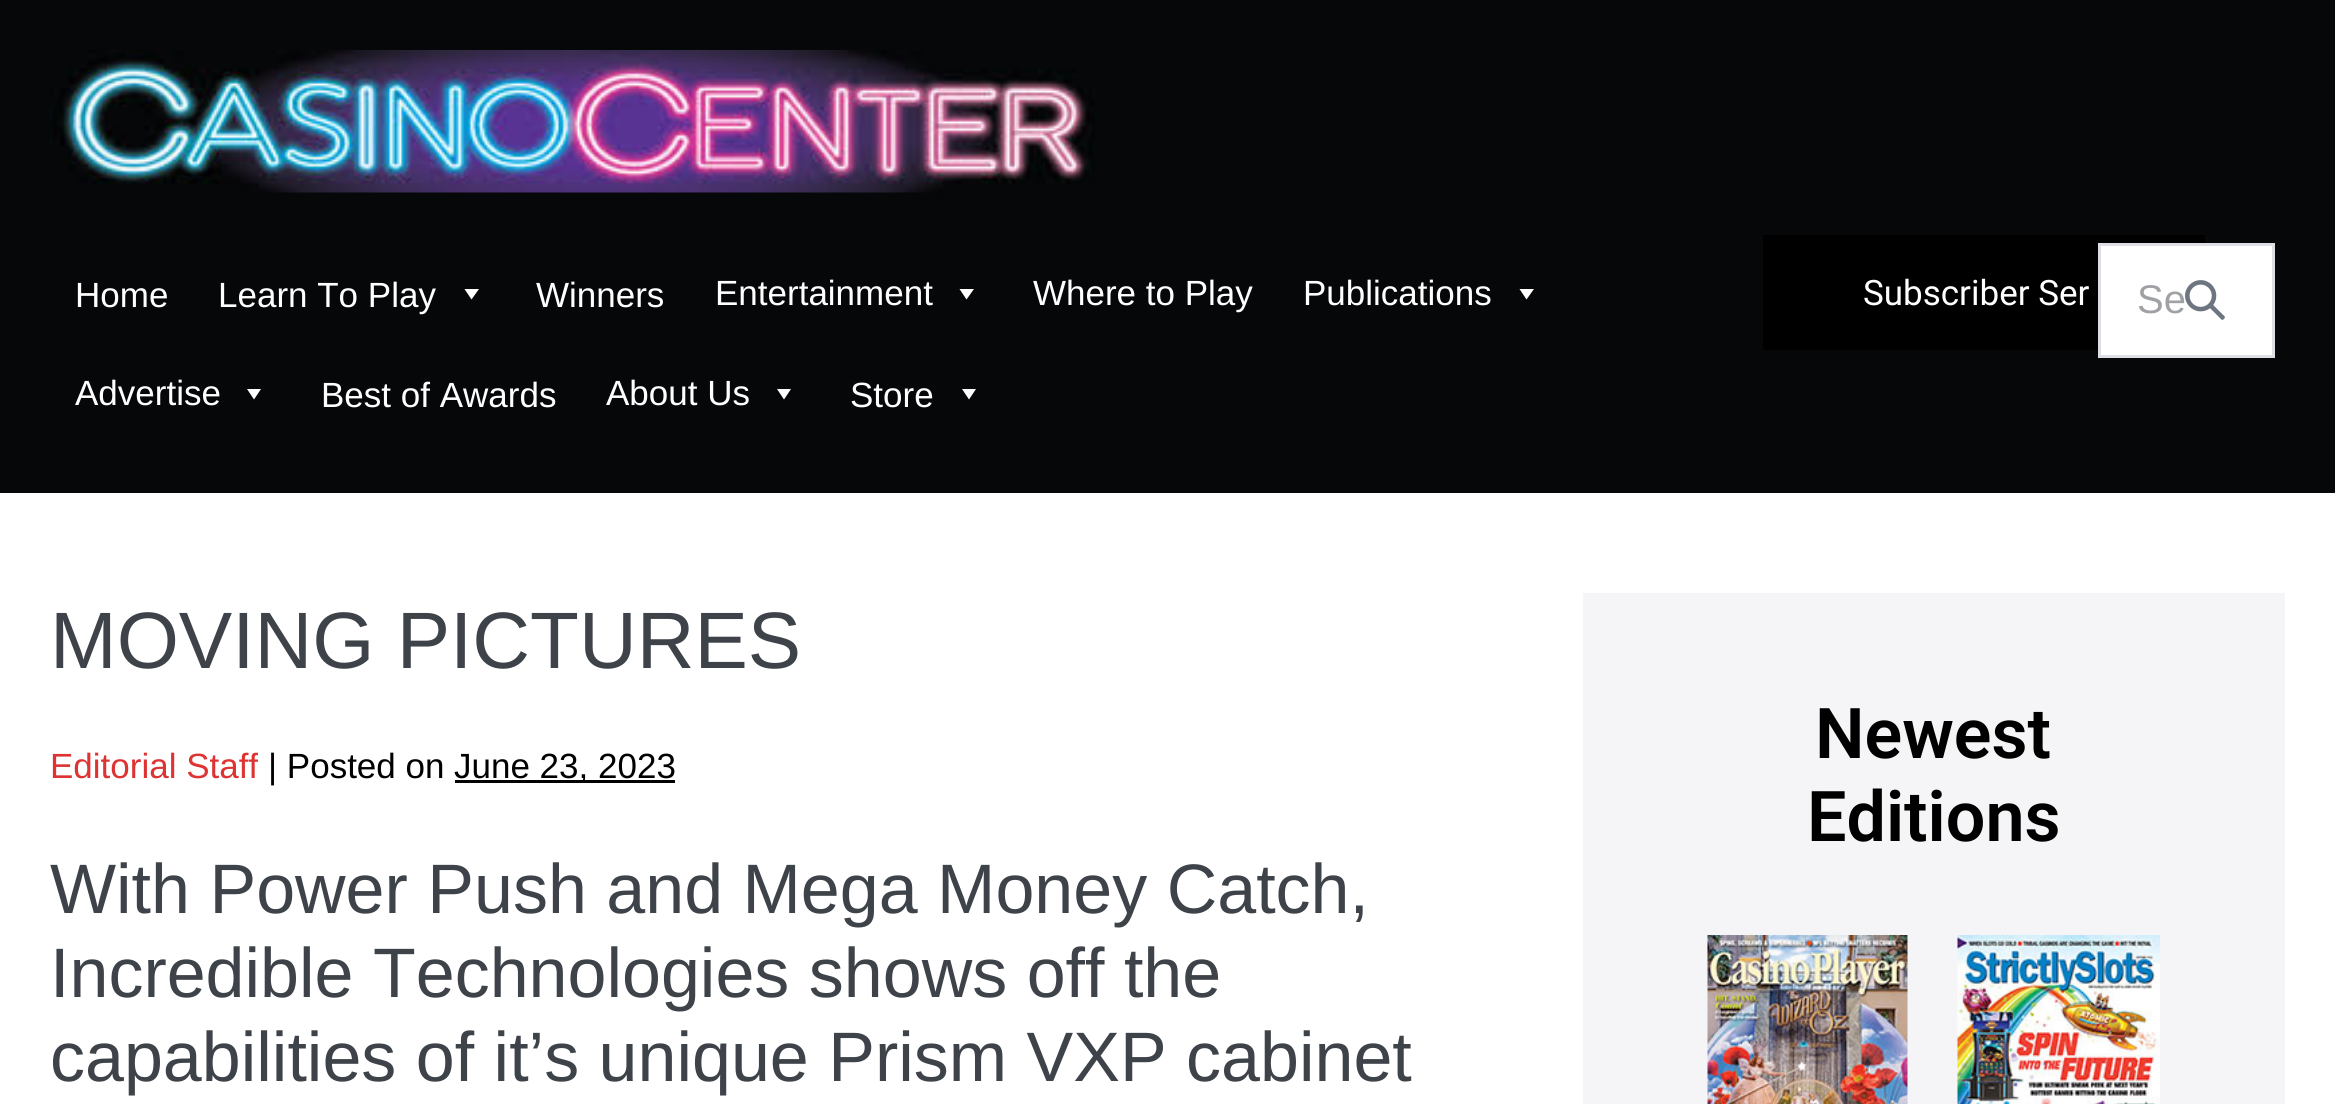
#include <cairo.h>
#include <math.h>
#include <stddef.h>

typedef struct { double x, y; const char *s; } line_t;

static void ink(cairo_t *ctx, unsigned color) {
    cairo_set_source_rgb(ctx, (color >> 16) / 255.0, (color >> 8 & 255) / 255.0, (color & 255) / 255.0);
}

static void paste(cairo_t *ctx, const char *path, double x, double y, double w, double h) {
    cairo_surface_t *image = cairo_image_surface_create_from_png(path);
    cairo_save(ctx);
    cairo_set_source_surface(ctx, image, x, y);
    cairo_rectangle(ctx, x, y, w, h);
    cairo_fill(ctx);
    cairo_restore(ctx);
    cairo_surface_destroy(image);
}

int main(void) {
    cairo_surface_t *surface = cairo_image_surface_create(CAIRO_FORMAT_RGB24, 2335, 1104);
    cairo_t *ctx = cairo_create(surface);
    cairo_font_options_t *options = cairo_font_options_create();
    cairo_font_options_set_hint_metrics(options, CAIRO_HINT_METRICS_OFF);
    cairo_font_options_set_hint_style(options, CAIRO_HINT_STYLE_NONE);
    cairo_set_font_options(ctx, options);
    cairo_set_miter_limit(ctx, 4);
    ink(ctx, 0xFFFFFF);
    cairo_paint(ctx);
    ink(ctx, 0x060709);
    cairo_rectangle(ctx, 0, 0, 2335, 493);
    cairo_fill(ctx);
    paste(ctx, "media/1.png", 50, 50, 1045, 143);
    cairo_select_font_face(ctx, "Liberation Sans", CAIRO_FONT_SLANT_NORMAL, CAIRO_FONT_WEIGHT_NORMAL);
    cairo_set_font_size(ctx, 35);
    ink(ctx, 0xFFFFFF);
    cairo_move_to(ctx, 75, 307);
    cairo_show_text(ctx, "Home");
    cairo_move_to(ctx, 218, 307);
    cairo_show_text(ctx, "Learn To Play");
    cairo_new_path(ctx);
    cairo_move_to(ctx, 479, 289);
    cairo_line_to(ctx, 471.5, 299.5);
    cairo_line_to(ctx, 464.5, 289);
    cairo_close_path(ctx);
    cairo_fill(ctx);
    cairo_move_to(ctx, 536, 307);
    cairo_show_text(ctx, "Winners");
    cairo_move_to(ctx, 715, 305);
    cairo_show_text(ctx, "Entertainment");
    cairo_new_path(ctx);
    cairo_move_to(ctx, 974, 289);
    cairo_line_to(ctx, 966.5, 299.5);
    cairo_line_to(ctx, 959.5, 289);
    cairo_close_path(ctx);
    cairo_fill(ctx);
    cairo_move_to(ctx, 1033, 305);
    cairo_show_text(ctx, "Where to Play");
    cairo_move_to(ctx, 1303, 305);
    cairo_show_text(ctx, "Publications");
    cairo_new_path(ctx);
    cairo_move_to(ctx, 1534, 289);
    cairo_line_to(ctx, 1526.5, 299.5);
    cairo_line_to(ctx, 1519.5, 289);
    cairo_close_path(ctx);
    cairo_fill(ctx);
    cairo_move_to(ctx, 75, 405);
    cairo_show_text(ctx, "Advertise");
    cairo_new_path(ctx);
    cairo_move_to(ctx, 261, 389);
    cairo_line_to(ctx, 254, 399.5);
    cairo_line_to(ctx, 247, 389);
    cairo_close_path(ctx);
    cairo_fill(ctx);
    cairo_move_to(ctx, 321, 407);
    cairo_show_text(ctx, "Best of Awards");
    cairo_move_to(ctx, 606, 405);
    cairo_show_text(ctx, "About Us");
    cairo_new_path(ctx);
    cairo_move_to(ctx, 791, 389);
    cairo_line_to(ctx, 784, 399.5);
    cairo_line_to(ctx, 777, 389);
    cairo_close_path(ctx);
    cairo_fill(ctx);
    cairo_move_to(ctx, 850, 407);
    cairo_show_text(ctx, "Store");
    cairo_new_path(ctx);
    cairo_move_to(ctx, 976, 389);
    cairo_line_to(ctx, 969, 399.5);
    cairo_line_to(ctx, 962, 389);
    cairo_close_path(ctx);
    cairo_fill(ctx);
    ink(ctx, 0x000000);
    cairo_rectangle(ctx, 1763, 235, 442, 115);
    cairo_fill(ctx);
    cairo_select_font_face(ctx, "Roboto", CAIRO_FONT_SLANT_NORMAL, CAIRO_FONT_WEIGHT_NORMAL);
    ink(ctx, 0xFFFFFF);
    cairo_move_to(ctx, 1863, 305);
    cairo_show_text(ctx, "Subscriber Ser");
    cairo_rectangle(ctx, 2099.5, 244.5, 174, 112);
    cairo_fill_preserve(ctx);
    ink(ctx, 0xDEDEE5);
    cairo_set_line_width(ctx, 3);
    cairo_stroke(ctx);
    cairo_select_font_face(ctx, "Liberation Sans", CAIRO_FONT_SLANT_NORMAL, CAIRO_FONT_WEIGHT_NORMAL);
    cairo_set_font_size(ctx, 40);
    ink(ctx, 0x9FA1A4);
    cairo_move_to(ctx, 2137, 313);
    cairo_show_text(ctx, "Se");
    paste(ctx, "media/2.png", 2185, 280, 40, 40);
    cairo_set_font_size(ctx, 80);
    ink(ctx, 0x3E4349);
    cairo_move_to(ctx, 50, 668);
    cairo_show_text(ctx, "MOVING PICTURES");
    cairo_set_font_size(ctx, 35);
    ink(ctx, 0xDD3333);
    cairo_move_to(ctx, 50, 778);
    cairo_show_text(ctx, "Editorial Staff");
    ink(ctx, 0x000000);
    cairo_move_to(ctx, 268, 778);
    cairo_show_text(ctx, "| Posted on");
    cairo_rectangle(ctx, 455, 780, 220, 3);
    cairo_fill(ctx);
    cairo_move_to(ctx, 454, 778);
    cairo_show_text(ctx, "June 23, 2023");
    cairo_set_font_size(ctx, 70);
    ink(ctx, 0x3E4349);
    {
        static const line_t items[] = {
            {50, 913, "With Power Push and Mega Money Catch,"},
            {50, 997, "Incredible Technologies shows off the"},
            {50, 1081, "capabilities of it’s unique Prism VXP cabinet"},
        };
        for (size_t i = 0; i < sizeof items / sizeof *items; i++) {
            cairo_move_to(ctx, items[i].x, items[i].y);
            cairo_show_text(ctx, items[i].s);
        }
    }
    ink(ctx, 0xF5F5F7);
    cairo_rectangle(ctx, 1583, 593, 702, 511);
    cairo_fill(ctx);
    cairo_select_font_face(ctx, "Roboto SemiBold", CAIRO_FONT_SLANT_NORMAL, CAIRO_FONT_WEIGHT_NORMAL);
    ink(ctx, 0x000000);
    cairo_move_to(ctx, 1815, 758);
    cairo_show_text(ctx, "Newest");
    cairo_move_to(ctx, 1807, 841);
    cairo_show_text(ctx, "Editions");
    paste(ctx, "media/3.png", 1707, 935, 201, 169);
    paste(ctx, "media/4.png", 1957, 935, 203, 169);
    cairo_surface_write_to_png(surface, "image.png");
    cairo_font_options_destroy(options);
    cairo_destroy(ctx);
    cairo_surface_destroy(surface);
    return 0;
}
